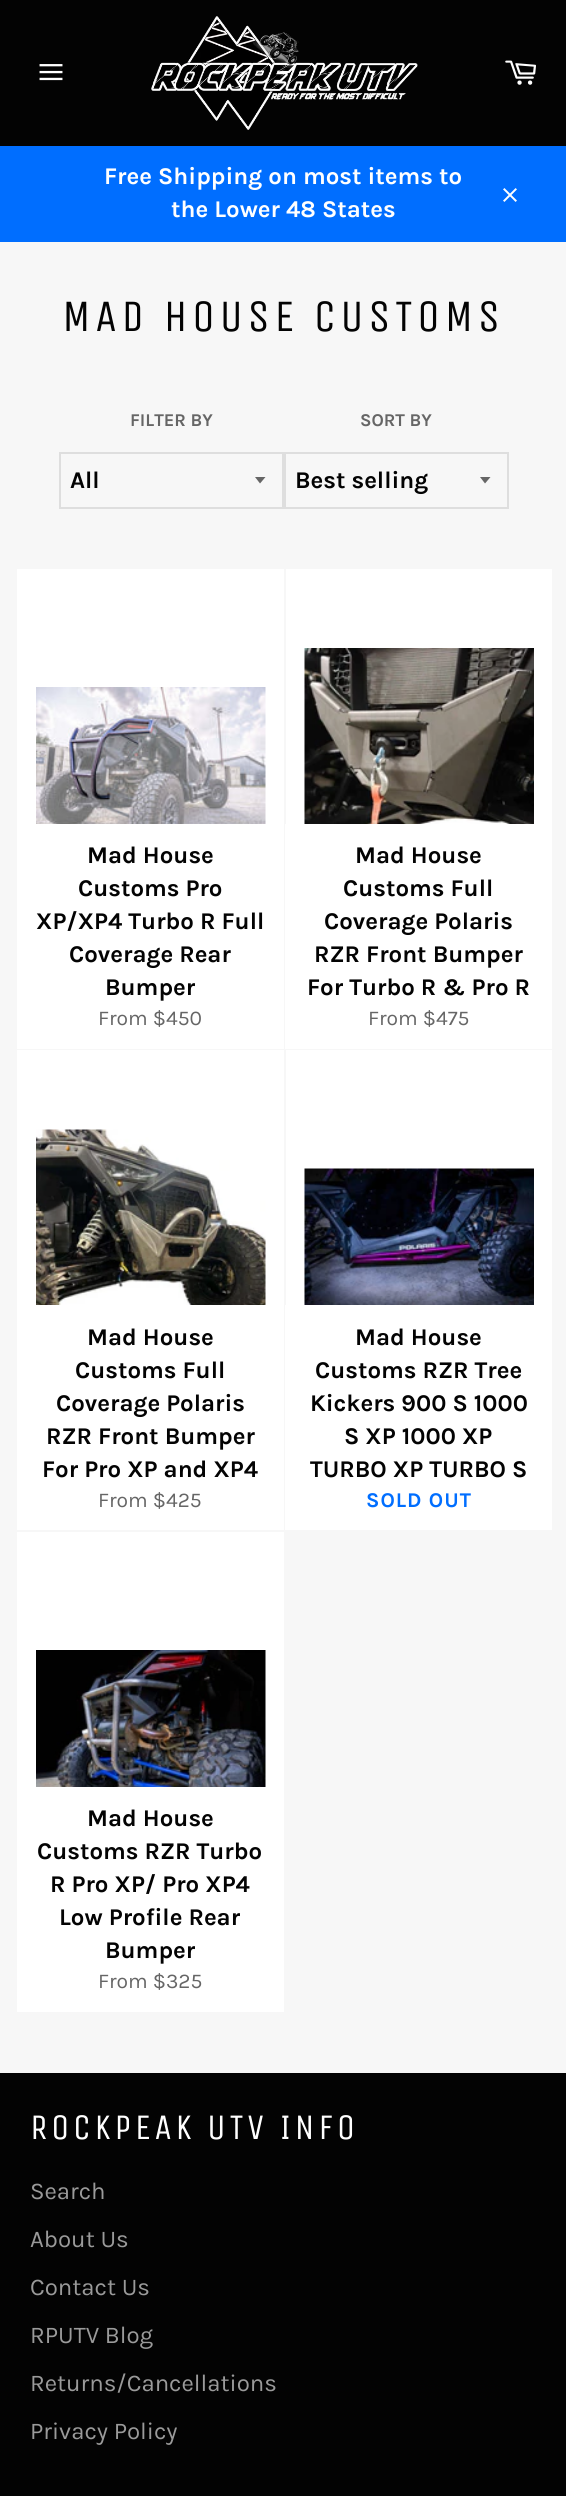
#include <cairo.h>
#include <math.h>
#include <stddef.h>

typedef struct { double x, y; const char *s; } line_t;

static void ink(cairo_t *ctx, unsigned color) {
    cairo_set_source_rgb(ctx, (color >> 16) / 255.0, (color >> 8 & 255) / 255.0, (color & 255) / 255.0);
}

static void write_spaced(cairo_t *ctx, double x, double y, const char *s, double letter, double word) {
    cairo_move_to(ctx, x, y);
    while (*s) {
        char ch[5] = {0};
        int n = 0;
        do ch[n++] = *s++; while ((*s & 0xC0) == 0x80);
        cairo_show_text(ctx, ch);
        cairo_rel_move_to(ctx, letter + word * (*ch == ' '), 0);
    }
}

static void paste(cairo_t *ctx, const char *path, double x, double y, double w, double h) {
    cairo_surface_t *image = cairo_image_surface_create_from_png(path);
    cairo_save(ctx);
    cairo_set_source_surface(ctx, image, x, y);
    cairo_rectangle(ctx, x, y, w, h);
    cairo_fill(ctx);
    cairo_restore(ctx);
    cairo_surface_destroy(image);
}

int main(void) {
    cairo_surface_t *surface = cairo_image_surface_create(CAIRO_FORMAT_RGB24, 566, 2496);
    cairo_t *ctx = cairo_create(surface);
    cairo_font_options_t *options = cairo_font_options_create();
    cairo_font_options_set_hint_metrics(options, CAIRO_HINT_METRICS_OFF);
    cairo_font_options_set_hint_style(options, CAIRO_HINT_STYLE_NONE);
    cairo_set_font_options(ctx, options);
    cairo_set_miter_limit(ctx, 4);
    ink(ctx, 0xF7F7F7);
    cairo_paint(ctx);
    ink(ctx, 0x030303);
    cairo_rectangle(ctx, 0, 0, 566, 146);
    cairo_fill(ctx);
    paste(ctx, "media/1.png", 39, 64, 24, 17);
    paste(ctx, "media/2.png", 151, 16, 267, 114);
    paste(ctx, "media/3.png", 505, 60, 31, 25);
    ink(ctx, 0x006EFF);
    cairo_rectangle(ctx, 0, 146, 566, 96);
    cairo_fill(ctx);
    cairo_select_font_face(ctx, "Karla", CAIRO_FONT_SLANT_NORMAL, CAIRO_FONT_WEIGHT_BOLD);
    cairo_set_font_size(ctx, 24);
    ink(ctx, 0xFFFFFF);
    cairo_move_to(ctx, 104, 184);
    cairo_show_text(ctx, "Free Shipping on most items to");
    cairo_move_to(ctx, 171, 217);
    cairo_show_text(ctx, "the Lower 48 States");
    paste(ctx, "media/4.png", 503, 188, 14, 14);
    cairo_select_font_face(ctx, "Unica One", CAIRO_FONT_SLANT_NORMAL, CAIRO_FONT_WEIGHT_NORMAL);
    cairo_set_font_size(ctx, 45);
    ink(ctx, 0x030303);
    write_spaced(ctx, 62, 331, "MAD HOUSE CUSTOMS", 4.5, 0);
    cairo_select_font_face(ctx, "Karla", CAIRO_FONT_SLANT_NORMAL, CAIRO_FONT_WEIGHT_BOLD);
    cairo_set_font_size(ctx, 18);
    ink(ctx, 0x666666);
    cairo_move_to(ctx, 130, 426);
    cairo_show_text(ctx, "FILTER BY");
    cairo_new_path(ctx);
    cairo_move_to(ctx, 255, 477);
    cairo_line_to(ctx, 260, 483.5);
    cairo_line_to(ctx, 265.5, 477);
    cairo_close_path(ctx);
    cairo_fill(ctx);
    cairo_rectangle(ctx, 60, 453, 223, 55);
    ink(ctx, 0xDEDEDE);
    cairo_stroke(ctx);
    cairo_set_font_size(ctx, 24);
    ink(ctx, 0x030303);
    cairo_move_to(ctx, 70, 488);
    cairo_show_text(ctx, "All");
    cairo_set_font_size(ctx, 18);
    ink(ctx, 0x666666);
    cairo_move_to(ctx, 360, 426);
    cairo_show_text(ctx, "SORT BY");
    cairo_new_path(ctx);
    cairo_move_to(ctx, 480, 477);
    cairo_line_to(ctx, 485, 483.5);
    cairo_line_to(ctx, 490.5, 477);
    cairo_close_path(ctx);
    cairo_fill(ctx);
    cairo_rectangle(ctx, 285, 453, 223, 55);
    ink(ctx, 0xDEDEDE);
    cairo_stroke(ctx);
    cairo_set_font_size(ctx, 24);
    ink(ctx, 0x030303);
    cairo_move_to(ctx, 295, 488);
    cairo_show_text(ctx, "Best selling");
    ink(ctx, 0xFFFFFF);
    cairo_rectangle(ctx, 17, 569, 267, 480);
    cairo_fill(ctx);
    paste(ctx, "media/5.png", 36, 687, 230, 137);
    ink(ctx, 0x030303);
    {
        static const line_t items[] = {
            {87, 863, "Mad House"},
            {78, 896, "Customs Pro"},
            {36, 929, "XP/XP4 Turbo R Full"},
            {69, 962, "Coverage Rear"},
            {105, 995, "Bumper"},
        };
        for (size_t i = 0; i < sizeof items / sizeof *items; i++) {
            cairo_move_to(ctx, items[i].x, items[i].y);
            cairo_show_text(ctx, items[i].s);
        }
    }
    cairo_select_font_face(ctx, "Karla", CAIRO_FONT_SLANT_NORMAL, CAIRO_FONT_WEIGHT_NORMAL);
    cairo_set_font_size(ctx, 21);
    ink(ctx, 0x666666);
    cairo_move_to(ctx, 98, 1025);
    cairo_show_text(ctx, "From $450");
    ink(ctx, 0xFFFFFF);
    cairo_rectangle(ctx, 286, 569, 266, 255);
    cairo_fill(ctx);
    paste(ctx, "media/6.png", 304, 648, 230, 176);
    cairo_rectangle(ctx, 285, 824, 267, 225);
    cairo_fill(ctx);
    cairo_select_font_face(ctx, "Karla", CAIRO_FONT_SLANT_NORMAL, CAIRO_FONT_WEIGHT_BOLD);
    cairo_set_font_size(ctx, 24);
    ink(ctx, 0x030303);
    {
        static const line_t items[] = {
            {355, 863, "Mad House"},
            {343, 896, "Customs Full"},
            {324, 929, "Coverage Polaris"},
            {314, 962, "RZR Front Bumper"},
            {307, 995, "For Turbo R & Pro R"},
        };
        for (size_t i = 0; i < sizeof items / sizeof *items; i++) {
            cairo_move_to(ctx, items[i].x, items[i].y);
            cairo_show_text(ctx, items[i].s);
        }
    }
    cairo_select_font_face(ctx, "Karla", CAIRO_FONT_SLANT_NORMAL, CAIRO_FONT_WEIGHT_NORMAL);
    cairo_set_font_size(ctx, 21);
    ink(ctx, 0x666666);
    cairo_move_to(ctx, 368, 1025);
    cairo_show_text(ctx, "From $475");
    ink(ctx, 0xFFFFFF);
    cairo_rectangle(ctx, 17, 1050, 267, 480);
    cairo_fill(ctx);
    paste(ctx, "media/7.png", 36, 1129, 230, 176);
    cairo_select_font_face(ctx, "Karla", CAIRO_FONT_SLANT_NORMAL, CAIRO_FONT_WEIGHT_BOLD);
    cairo_set_font_size(ctx, 24);
    ink(ctx, 0x030303);
    {
        static const line_t items[] = {
            {87, 1345, "Mad House"},
            {75, 1378, "Customs Full"},
            {56, 1411, "Coverage Polaris"},
            {46, 1444, "RZR Front Bumper"},
            {42, 1477, "For Pro XP and XP4"},
        };
        for (size_t i = 0; i < sizeof items / sizeof *items; i++) {
            cairo_move_to(ctx, items[i].x, items[i].y);
            cairo_show_text(ctx, items[i].s);
        }
    }
    cairo_select_font_face(ctx, "Karla", CAIRO_FONT_SLANT_NORMAL, CAIRO_FONT_WEIGHT_NORMAL);
    cairo_set_font_size(ctx, 21);
    ink(ctx, 0x666666);
    cairo_move_to(ctx, 98, 1507);
    cairo_show_text(ctx, "From $425");
    ink(ctx, 0xFFFFFF);
    cairo_rectangle(ctx, 286, 1050, 266, 255);
    cairo_fill(ctx);
    paste(ctx, "media/8.png", 304, 1168, 230, 137);
    cairo_rectangle(ctx, 285, 1305, 267, 225);
    cairo_fill(ctx);
    cairo_select_font_face(ctx, "Karla", CAIRO_FONT_SLANT_NORMAL, CAIRO_FONT_WEIGHT_BOLD);
    cairo_set_font_size(ctx, 24);
    ink(ctx, 0x030303);
    {
        static const line_t items[] = {
            {355, 1345, "Mad House"},
            {315, 1378, "Customs RZR Tree"},
            {310, 1411, "Kickers 900 S 1000"},
            {344, 1444, "S XP 1000 XP"},
            {310, 1477, "TURBO XP TURBO S"},
        };
        for (size_t i = 0; i < sizeof items / sizeof *items; i++) {
            cairo_move_to(ctx, items[i].x, items[i].y);
            cairo_show_text(ctx, items[i].s);
        }
    }
    cairo_set_font_size(ctx, 21);
    ink(ctx, 0x006EFF);
    write_spaced(ctx, 366, 1507, "SOLD OUT", 1, 0);
    ink(ctx, 0xFFFFFF);
    cairo_rectangle(ctx, 17, 1532, 267, 480);
    cairo_fill(ctx);
    paste(ctx, "media/9.png", 36, 1650, 230, 137);
    cairo_set_font_size(ctx, 24);
    ink(ctx, 0x030303);
    {
        static const line_t items[] = {
            {87, 1826, "Mad House"},
            {37, 1859, "Customs RZR Turbo"},
            {50, 1892, "R Pro XP/ Pro XP4"},
            {59, 1925, "Low Profile Rear"},
            {105, 1958, "Bumper"},
        };
        for (size_t i = 0; i < sizeof items / sizeof *items; i++) {
            cairo_move_to(ctx, items[i].x, items[i].y);
            cairo_show_text(ctx, items[i].s);
        }
    }
    cairo_select_font_face(ctx, "Karla", CAIRO_FONT_SLANT_NORMAL, CAIRO_FONT_WEIGHT_NORMAL);
    cairo_set_font_size(ctx, 21);
    ink(ctx, 0x666666);
    cairo_move_to(ctx, 98, 1988);
    cairo_show_text(ctx, "From $325");
    ink(ctx, 0x030303);
    cairo_rectangle(ctx, 0, 2073, 566, 423);
    cairo_fill(ctx);
    cairo_select_font_face(ctx, "Unica One", CAIRO_FONT_SLANT_NORMAL, CAIRO_FONT_WEIGHT_NORMAL);
    cairo_set_font_size(ctx, 36);
    ink(ctx, 0xFFFFFF);
    write_spaced(ctx, 30, 2139, "ROCKPEAK UTV INFO", 3.6, 0);
    cairo_select_font_face(ctx, "Karla", CAIRO_FONT_SLANT_NORMAL, CAIRO_FONT_WEIGHT_NORMAL);
    cairo_set_font_size(ctx, 24);
    ink(ctx, 0x9A9A9A);
    {
        static const line_t items[] = {
            {30, 2199, "Search"},
            {30, 2247, "About Us"},
            {30, 2295, "Contact Us"},
            {30, 2343, "RPUTV Blog"},
            {30, 2391, "Returns/Cancellations"},
            {30, 2439, "Privacy Policy"},
        };
        for (size_t i = 0; i < sizeof items / sizeof *items; i++) {
            cairo_move_to(ctx, items[i].x, items[i].y);
            cairo_show_text(ctx, items[i].s);
        }
    }
    cairo_surface_write_to_png(surface, "image.png");
    cairo_font_options_destroy(options);
    cairo_destroy(ctx);
    cairo_surface_destroy(surface);
    return 0;
}
